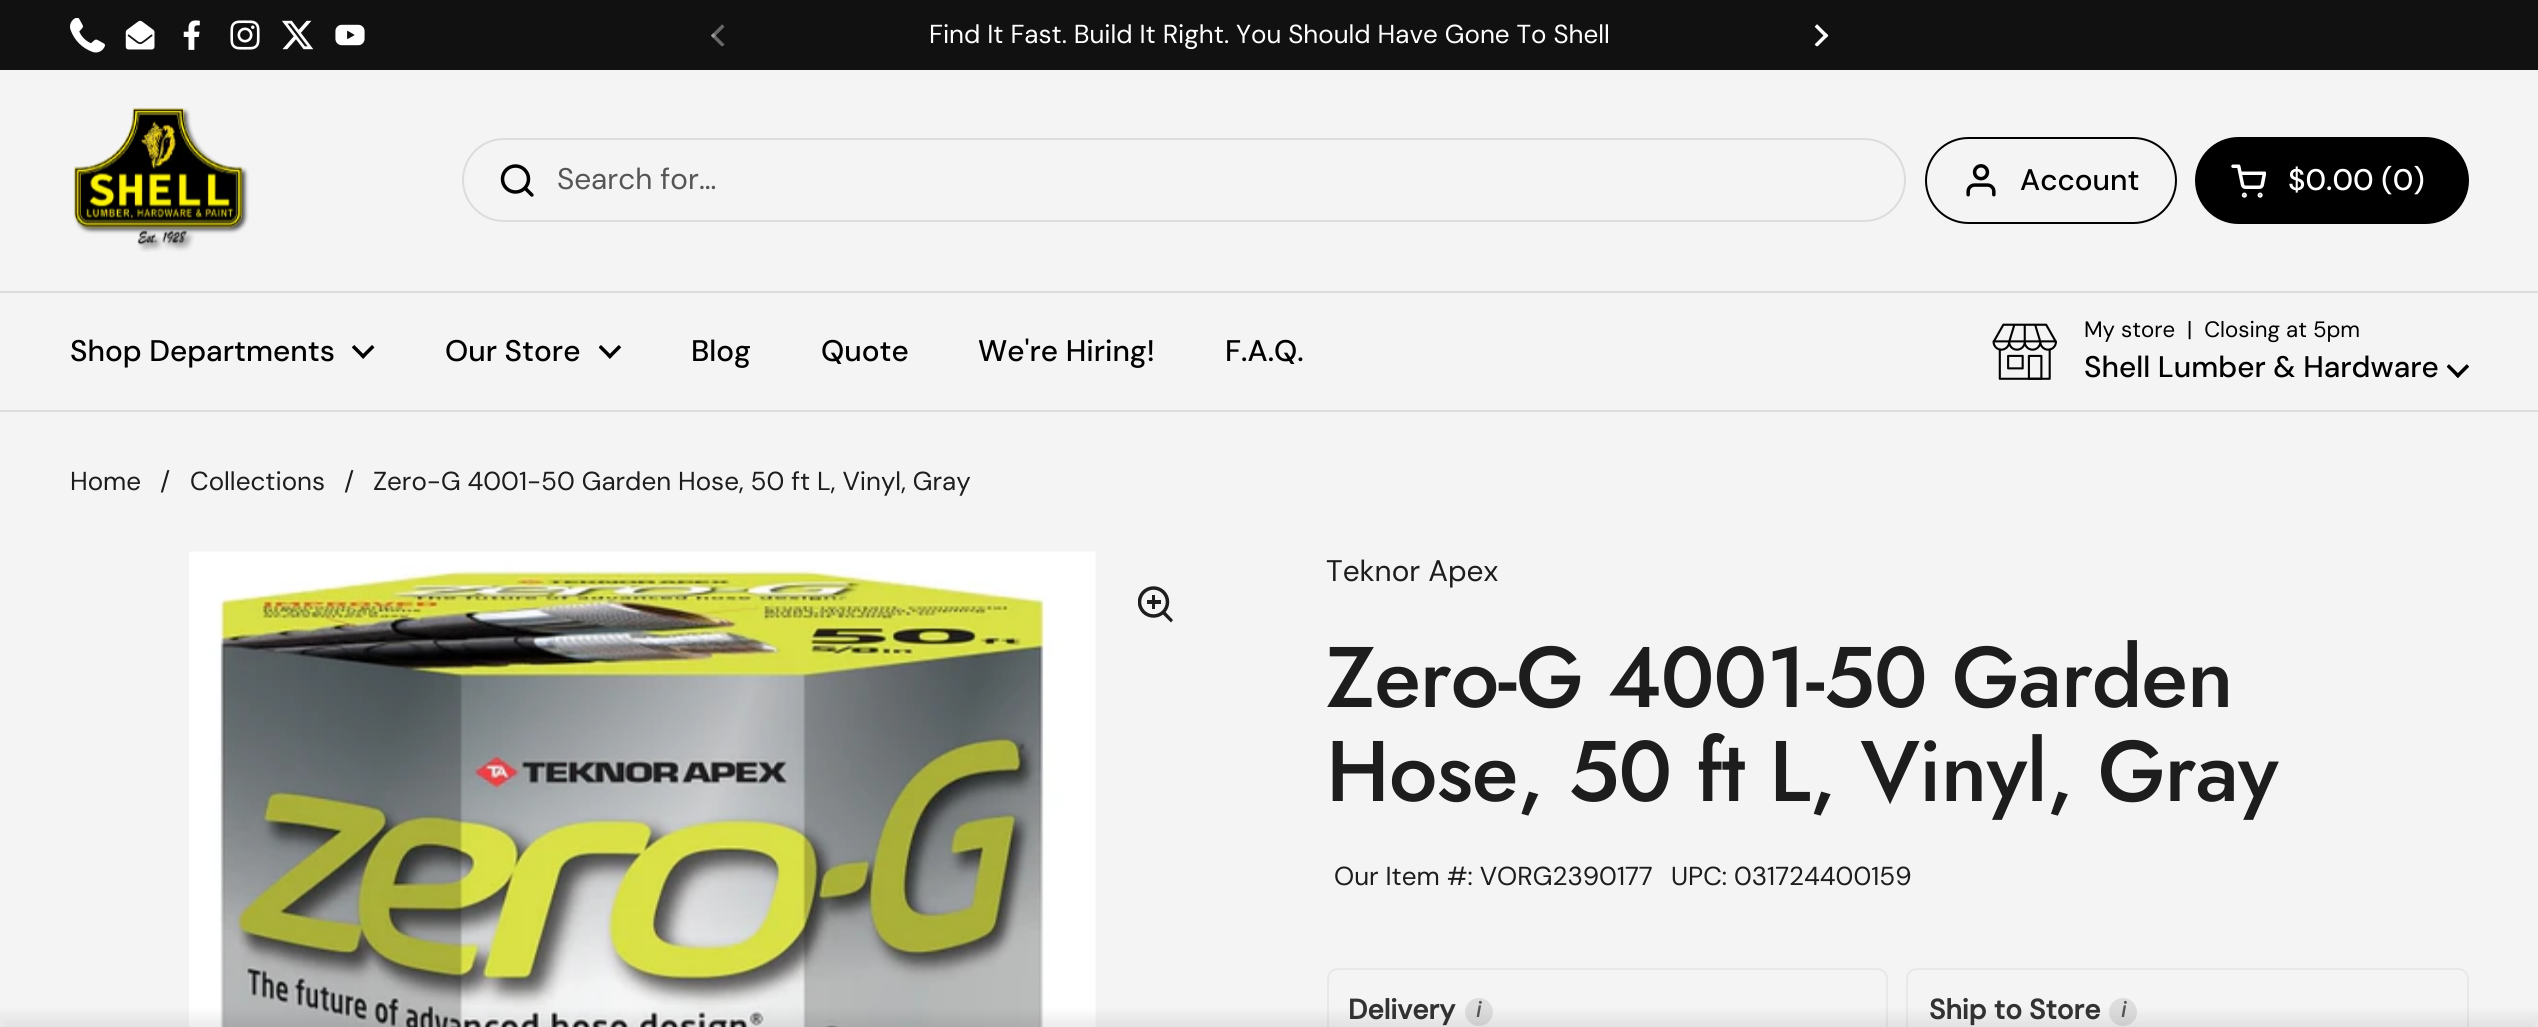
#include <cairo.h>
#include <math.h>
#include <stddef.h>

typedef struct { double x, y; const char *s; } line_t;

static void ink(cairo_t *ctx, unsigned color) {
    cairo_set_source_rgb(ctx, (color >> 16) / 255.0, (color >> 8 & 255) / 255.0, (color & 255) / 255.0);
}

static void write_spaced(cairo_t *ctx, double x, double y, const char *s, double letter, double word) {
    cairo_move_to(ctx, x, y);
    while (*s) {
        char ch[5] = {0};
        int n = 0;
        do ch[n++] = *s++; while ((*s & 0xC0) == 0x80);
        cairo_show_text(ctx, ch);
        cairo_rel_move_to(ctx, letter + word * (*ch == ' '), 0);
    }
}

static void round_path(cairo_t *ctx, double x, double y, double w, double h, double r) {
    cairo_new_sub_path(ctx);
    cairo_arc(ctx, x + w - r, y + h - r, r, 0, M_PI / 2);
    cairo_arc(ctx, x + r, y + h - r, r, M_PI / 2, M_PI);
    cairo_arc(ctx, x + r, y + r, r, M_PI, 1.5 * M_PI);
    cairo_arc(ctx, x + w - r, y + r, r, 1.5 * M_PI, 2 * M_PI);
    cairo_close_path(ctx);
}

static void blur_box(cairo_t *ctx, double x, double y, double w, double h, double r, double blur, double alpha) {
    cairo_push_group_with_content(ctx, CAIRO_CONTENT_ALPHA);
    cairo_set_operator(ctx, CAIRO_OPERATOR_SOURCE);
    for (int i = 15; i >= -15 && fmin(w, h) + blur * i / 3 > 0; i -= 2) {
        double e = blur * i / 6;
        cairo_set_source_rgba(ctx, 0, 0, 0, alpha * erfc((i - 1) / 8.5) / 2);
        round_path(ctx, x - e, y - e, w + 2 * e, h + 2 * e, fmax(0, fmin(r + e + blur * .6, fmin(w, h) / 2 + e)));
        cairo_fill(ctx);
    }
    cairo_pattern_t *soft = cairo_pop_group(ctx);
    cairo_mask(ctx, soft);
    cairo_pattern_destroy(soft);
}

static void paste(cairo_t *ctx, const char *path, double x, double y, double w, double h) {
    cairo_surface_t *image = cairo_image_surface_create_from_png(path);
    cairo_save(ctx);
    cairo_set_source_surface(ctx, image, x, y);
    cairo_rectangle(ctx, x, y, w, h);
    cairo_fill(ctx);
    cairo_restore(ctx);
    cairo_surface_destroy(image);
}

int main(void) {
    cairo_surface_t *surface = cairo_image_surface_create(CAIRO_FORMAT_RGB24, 2538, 1027);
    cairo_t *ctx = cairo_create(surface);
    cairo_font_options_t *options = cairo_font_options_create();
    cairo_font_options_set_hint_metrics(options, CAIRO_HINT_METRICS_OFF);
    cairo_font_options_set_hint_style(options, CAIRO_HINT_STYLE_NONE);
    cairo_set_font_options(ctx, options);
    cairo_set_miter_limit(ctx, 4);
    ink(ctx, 0xF4F4F4);
    cairo_paint(ctx);
    ink(ctx, 0x111111);
    cairo_rectangle(ctx, 0, 0, 2538, 70);
    cairo_fill(ctx);
    paste(ctx, "media/1.png", 70, 18, 35, 35);
    paste(ctx, "media/2.png", 125, 20, 30, 30);
    paste(ctx, "media/3.png", 183, 20, 17, 30);
    paste(ctx, "media/4.png", 230, 20, 30, 30);
    paste(ctx, "media/5.png", 282, 20, 32, 30);
    paste(ctx, "media/6.png", 335, 24, 30, 22);
    paste(ctx, "media/7.png", 711, 24, 14, 23);
    cairo_select_font_face(ctx, "DM Sans", CAIRO_FONT_SLANT_NORMAL, CAIRO_FONT_WEIGHT_NORMAL);
    cairo_set_font_size(ctx, 26);
    ink(ctx, 0xFFFFFF);
    cairo_move_to(ctx, 929, 43);
    cairo_show_text(ctx, "Find It Fast. Build It Right. You Should Have Gone To Shell");
    paste(ctx, "media/8.png", 1814, 24, 15, 23);
    ink(ctx, 0xDCDCDC);
    cairo_rectangle(ctx, 0, 291, 2538, 2);
    cairo_fill(ctx);
    paste(ctx, "media/9.png", 73, 108, 176, 144);
    round_path(ctx, 463, 139, 1442, 82, 41);
    cairo_stroke(ctx);
    paste(ctx, "media/10.png", 500, 164, 34, 33);
    cairo_select_font_face(ctx, "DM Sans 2", CAIRO_FONT_SLANT_NORMAL, CAIRO_FONT_WEIGHT_NORMAL);
    cairo_set_font_size(ctx, 29.75);
    ink(ctx, 0x555555);
    cairo_move_to(ctx, 557, 189);
    cairo_show_text(ctx, "Search for...");
    round_path(ctx, 1926, 138, 250, 85, 42.5);
    ink(ctx, 0x000000);
    cairo_stroke(ctx);
    paste(ctx, "media/11.png", 1966, 164, 30, 33);
    cairo_select_font_face(ctx, "DM Sans Medium", CAIRO_FONT_SLANT_NORMAL, CAIRO_FONT_WEIGHT_NORMAL);
    cairo_move_to(ctx, 2020, 190);
    cairo_show_text(ctx, "Account");
    round_path(ctx, 2196, 138, 272, 85, 42.5);
    cairo_fill_preserve(ctx);
    cairo_stroke(ctx);
    paste(ctx, "media/12.png", 2231, 164, 35, 34);
    ink(ctx, 0xFFFFFF);
    cairo_move_to(ctx, 2288, 190);
    cairo_show_text(ctx, "$0.00 (0)");
    ink(ctx, 0xDCDCDC);
    cairo_rectangle(ctx, 0, 410, 2538, 2);
    cairo_fill(ctx);
    ink(ctx, 0x000000);
    cairo_move_to(ctx, 70, 361);
    cairo_show_text(ctx, "Shop Departments");
    paste(ctx, "media/13.png", 352, 345, 23, 14);
    cairo_move_to(ctx, 445, 361);
    cairo_show_text(ctx, "Our Store");
    paste(ctx, "media/14.png", 599, 345, 22, 14);
    {
        static const line_t items[] = {
            {691, 361, "Blog"},
            {821, 361, "Quote"},
            {978, 361, "We're Hiring!"},
            {1225, 361, "F.A.Q."},
        };
        for (size_t i = 0; i < sizeof items / sizeof *items; i++) {
            cairo_move_to(ctx, items[i].x, items[i].y);
            cairo_show_text(ctx, items[i].s);
        }
    }
    paste(ctx, "media/15.png", 1992, 323, 65, 57);
    cairo_select_font_face(ctx, "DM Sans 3", CAIRO_FONT_SLANT_NORMAL, CAIRO_FONT_WEIGHT_NORMAL);
    cairo_set_font_size(ctx, 22.25);
    cairo_move_to(ctx, 2084, 337);
    cairo_show_text(ctx, "My store  |  Closing at 5pm");
    cairo_select_font_face(ctx, "DM Sans Medium", CAIRO_FONT_SLANT_NORMAL, CAIRO_FONT_WEIGHT_NORMAL);
    cairo_set_font_size(ctx, 29.75);
    cairo_move_to(ctx, 2084, 377);
    cairo_show_text(ctx, "Shell Lumber & Hardware");
    paste(ctx, "media/16.png", 2447, 364, 22, 14);
    cairo_select_font_face(ctx, "DM Sans", CAIRO_FONT_SLANT_NORMAL, CAIRO_FONT_WEIGHT_NORMAL);
    cairo_set_font_size(ctx, 26);
    ink(ctx, 0x1D1D1D);
    {
        static const line_t items[] = {
            {70, 490, "Home"},
            {160, 490, "/"},
            {190, 490, "Collections"},
            {344, 490, "/"},
            {373, 490, "Zero-G 4001-50 Garden Hose, 50 ft L, Vinyl, Gray"},
        };
        for (size_t i = 0; i < sizeof items / sizeof *items; i++) {
            cairo_move_to(ctx, items[i].x, items[i].y);
            cairo_show_text(ctx, items[i].s);
        }
    }
    paste(ctx, "media/17.png", 189, 551, 907, 476);
    cairo_save(ctx);
    cairo_rectangle(ctx, 1138, 586, 36, 37);
    cairo_clip(ctx);
    cairo_arc(ctx, 1153.5, 602, 14, 0, 2 * M_PI);
    cairo_set_line_width(ctx, 3.5);
    cairo_stroke(ctx);
    cairo_restore(ctx);
    cairo_rectangle(ctx, 1152, 595, 3, 14);
    cairo_fill(ctx);
    cairo_rectangle(ctx, 1147, 600, 14, 4);
    cairo_fill(ctx);
    cairo_new_path(ctx);
    cairo_move_to(ctx, 1162.5, 614);
    cairo_line_to(ctx, 1165, 611.5);
    cairo_line_to(ctx, 1173, 620);
    cairo_line_to(ctx, 1171, 622.5);
    cairo_close_path(ctx);
    cairo_fill(ctx);
    cairo_select_font_face(ctx, "DM Sans 2", CAIRO_FONT_SLANT_NORMAL, CAIRO_FONT_WEIGHT_NORMAL);
    cairo_set_font_size(ctx, 29.75);
    cairo_move_to(ctx, 1326, 581);
    cairo_show_text(ctx, "Teknor Apex");
    cairo_select_font_face(ctx, "Jost Medium", CAIRO_FONT_SLANT_NORMAL, CAIRO_FONT_WEIGHT_NORMAL);
    cairo_set_font_size(ctx, 85.75);
    write_spaced(ctx, 1326, 707, "Zero-G 4001-50 Garden", -0.85, 0);
    write_spaced(ctx, 1326, 801, "Hose, 50 ft L, Vinyl, Gray", -0.85, 0);
    cairo_select_font_face(ctx, "DM Sans", CAIRO_FONT_SLANT_NORMAL, CAIRO_FONT_WEIGHT_NORMAL);
    cairo_set_font_size(ctx, 26);
    cairo_move_to(ctx, 1334, 885);
    cairo_show_text(ctx, "Our Item #: VORG2390177");
    cairo_move_to(ctx, 1671, 885);
    cairo_show_text(ctx, "UPC: 031724400159");
    round_path(ctx, 1328, 969, 559, 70, 10);
    ink(ctx, 0xE8E8E8);
    cairo_stroke(ctx);
    cairo_select_font_face(ctx, "DM Sans", CAIRO_FONT_SLANT_NORMAL, CAIRO_FONT_WEIGHT_BOLD);
    cairo_set_font_size(ctx, 28);
    ink(ctx, 0x333333);
    cairo_move_to(ctx, 1348, 1019);
    cairo_show_text(ctx, "Delivery");
    ink(ctx, 0xDDDDDD);
    cairo_new_path(ctx);
    cairo_arc(ctx, 1479, 1012, 14, 0, 2 * M_PI);
    cairo_fill(ctx);
    cairo_select_font_face(ctx, "DM Sans", CAIRO_FONT_SLANT_ITALIC, CAIRO_FONT_WEIGHT_BOLD);
    cairo_set_font_size(ctx, 21);
    ink(ctx, 0x555555);
    cairo_move_to(ctx, 1476, 1017);
    cairo_show_text(ctx, "i");
    round_path(ctx, 1907, 969, 561, 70, 10);
    ink(ctx, 0xE8E8E8);
    cairo_stroke(ctx);
    cairo_select_font_face(ctx, "DM Sans", CAIRO_FONT_SLANT_NORMAL, CAIRO_FONT_WEIGHT_BOLD);
    cairo_set_font_size(ctx, 28);
    ink(ctx, 0x333333);
    cairo_move_to(ctx, 1929, 1019);
    cairo_show_text(ctx, "Ship to Store");
    ink(ctx, 0xDDDDDD);
    cairo_new_path(ctx);
    cairo_arc(ctx, 2123, 1012, 14, 0, 2 * M_PI);
    cairo_fill(ctx);
    cairo_select_font_face(ctx, "DM Sans", CAIRO_FONT_SLANT_ITALIC, CAIRO_FONT_WEIGHT_BOLD);
    cairo_set_font_size(ctx, 21);
    ink(ctx, 0x555555);
    cairo_move_to(ctx, 2121, 1017);
    cairo_show_text(ctx, "i");
    ink(ctx, 0x000000);
    blur_box(ctx, 0, 1017, 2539, 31, 0, 7, 0.08);
    cairo_surface_write_to_png(surface, "image.png");
    cairo_font_options_destroy(options);
    cairo_destroy(ctx);
    cairo_surface_destroy(surface);
    return 0;
}
